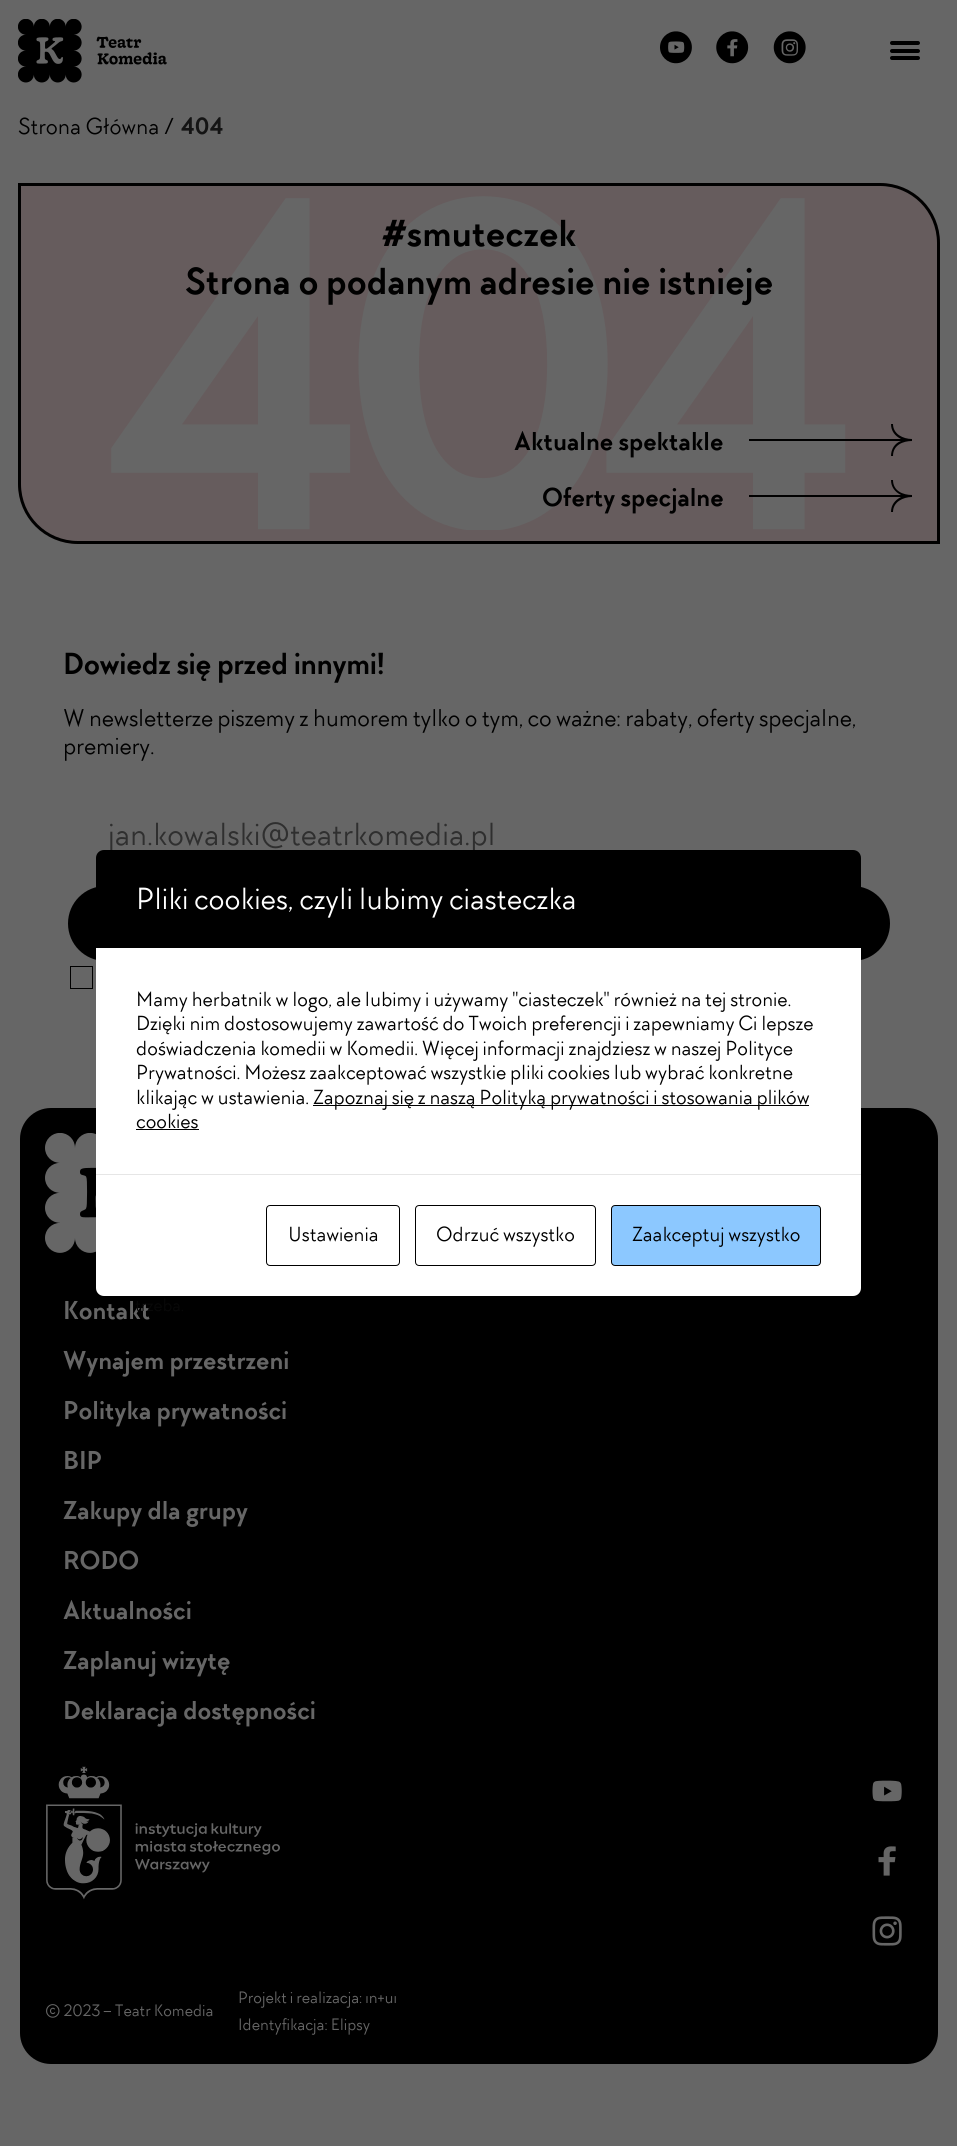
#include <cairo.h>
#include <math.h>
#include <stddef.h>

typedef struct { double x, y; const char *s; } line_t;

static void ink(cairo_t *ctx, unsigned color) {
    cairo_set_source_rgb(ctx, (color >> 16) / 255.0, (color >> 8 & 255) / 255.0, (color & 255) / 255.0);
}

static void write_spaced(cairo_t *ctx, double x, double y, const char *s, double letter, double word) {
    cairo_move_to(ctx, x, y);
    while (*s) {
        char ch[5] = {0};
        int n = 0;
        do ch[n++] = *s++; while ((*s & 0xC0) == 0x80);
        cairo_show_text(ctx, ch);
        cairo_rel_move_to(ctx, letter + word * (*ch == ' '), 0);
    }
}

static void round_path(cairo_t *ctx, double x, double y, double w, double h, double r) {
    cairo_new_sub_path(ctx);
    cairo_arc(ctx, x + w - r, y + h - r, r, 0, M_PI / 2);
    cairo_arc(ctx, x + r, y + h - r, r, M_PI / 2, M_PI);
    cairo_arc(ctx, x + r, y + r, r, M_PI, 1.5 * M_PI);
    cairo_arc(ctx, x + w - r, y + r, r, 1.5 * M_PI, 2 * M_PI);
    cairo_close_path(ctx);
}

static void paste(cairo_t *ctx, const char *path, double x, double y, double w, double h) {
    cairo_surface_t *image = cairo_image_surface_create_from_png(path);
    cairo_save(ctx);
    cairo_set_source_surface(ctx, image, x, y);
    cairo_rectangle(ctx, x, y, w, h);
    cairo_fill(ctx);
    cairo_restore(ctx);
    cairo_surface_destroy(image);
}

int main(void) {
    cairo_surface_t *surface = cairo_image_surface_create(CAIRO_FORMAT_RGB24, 957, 2146);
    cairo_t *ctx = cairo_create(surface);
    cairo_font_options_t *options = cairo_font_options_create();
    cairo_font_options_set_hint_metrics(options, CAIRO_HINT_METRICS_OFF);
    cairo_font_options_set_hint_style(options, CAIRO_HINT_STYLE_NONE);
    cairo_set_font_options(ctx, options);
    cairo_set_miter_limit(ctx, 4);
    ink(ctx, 0x666666);
    cairo_paint(ctx);
    paste(ctx, "media/1.png", 18, 19, 149, 64);
    paste(ctx, "media/2.png", 660, 31, 32, 33);
    paste(ctx, "media/3.png", 716, 31, 33, 33);
    paste(ctx, "media/4.png", 773, 31, 33, 33);
    ink(ctx, 0x000000);
    round_path(ctx, 890, 49, 30, 4, 2);
    cairo_fill(ctx);
    round_path(ctx, 890, 41, 30, 4, 2);
    cairo_fill(ctx);
    round_path(ctx, 890, 56, 30, 4, 2);
    cairo_fill(ctx);
    cairo_select_font_face(ctx, "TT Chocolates", CAIRO_FONT_SLANT_NORMAL, CAIRO_FONT_WEIGHT_NORMAL);
    cairo_set_font_size(ctx, 24);
    cairo_move_to(ctx, 18, 134);
    cairo_show_text(ctx, "Strona Główna");
    cairo_move_to(ctx, 164, 134);
    cairo_show_text(ctx, "/");
    cairo_select_font_face(ctx, "TT Chocolates", CAIRO_FONT_SLANT_NORMAL, CAIRO_FONT_WEIGHT_BOLD);
    ink(ctx, 0x141414);
    cairo_move_to(ctx, 181, 134);
    cairo_show_text(ctx, "404");
    ink(ctx, 0x665C5D);
    cairo_new_path(ctx);
    cairo_move_to(ctx, 18, 183);
    cairo_line_to(ctx, 880, 183);
    cairo_curve_to(ctx, 913, 183, 940, 210, 940, 243);
    cairo_line_to(ctx, 940, 544);
    cairo_line_to(ctx, 78, 544);
    cairo_curve_to(ctx, 45, 544, 18, 517, 18, 484);
    cairo_close_path(ctx);
    cairo_fill(ctx);
    paste(ctx, "media/5.png", 111, 196, 735, 334);
    cairo_new_path(ctx);
    cairo_move_to(ctx, 19.5, 184.5);
    cairo_line_to(ctx, 880, 184.5);
    cairo_curve_to(ctx, 912.5, 184.5, 938.5, 210.5, 938.5, 243);
    cairo_line_to(ctx, 938.5, 542.5);
    cairo_line_to(ctx, 78, 542.5);
    cairo_curve_to(ctx, 45.5, 542.5, 19.5, 516.5, 19.5, 484);
    cairo_close_path(ctx);
    ink(ctx, 0x000000);
    cairo_set_line_width(ctx, 3);
    cairo_stroke(ctx);
    cairo_set_font_size(ctx, 38.5);
    cairo_move_to(ctx, 382, 246);
    cairo_show_text(ctx, "#smuteczek");
    cairo_move_to(ctx, 185, 294);
    cairo_show_text(ctx, "Strona o podanym adresie nie istnieje");
    cairo_set_font_size(ctx, 26.5);
    cairo_move_to(ctx, 514, 450);
    cairo_show_text(ctx, "Aktualne spektakle");
    cairo_new_path(ctx);
    cairo_move_to(ctx, 893, 424);
    cairo_line_to(ctx, 891, 424);
    cairo_curve_to(ctx, 891, 431, 895, 436, 901, 439);
    cairo_line_to(ctx, 749, 439);
    cairo_line_to(ctx, 749, 441);
    cairo_line_to(ctx, 901, 441);
    cairo_curve_to(ctx, 895, 443, 891, 449, 891, 456);
    cairo_line_to(ctx, 893, 456);
    cairo_curve_to(ctx, 893, 445, 903, 441, 912, 441);
    cairo_line_to(ctx, 912, 439);
    cairo_curve_to(ctx, 903, 439, 893, 434, 893, 424);
    cairo_close_path(ctx);
    cairo_fill(ctx);
    cairo_move_to(ctx, 542, 506);
    cairo_show_text(ctx, "Oferty specjalne");
    cairo_new_path(ctx);
    cairo_move_to(ctx, 893, 480);
    cairo_line_to(ctx, 891, 480);
    cairo_curve_to(ctx, 891, 487, 895, 492, 901, 495);
    cairo_line_to(ctx, 749, 495);
    cairo_line_to(ctx, 749, 497);
    cairo_line_to(ctx, 901, 497);
    cairo_curve_to(ctx, 895, 500, 891, 505, 891, 512);
    cairo_line_to(ctx, 893, 512);
    cairo_curve_to(ctx, 893, 502, 903, 497, 912, 497);
    cairo_line_to(ctx, 912, 495);
    cairo_curve_to(ctx, 903, 495, 893, 491, 893, 480);
    cairo_close_path(ctx);
    cairo_fill(ctx);
    cairo_set_font_size(ctx, 31.25);
    write_spaced(ctx, 63, 674, "Dowiedz się przed innymi!", -0.3, 0);
    cairo_select_font_face(ctx, "TT Chocolates", CAIRO_FONT_SLANT_NORMAL, CAIRO_FONT_WEIGHT_NORMAL);
    cairo_set_font_size(ctx, 25.25);
    write_spaced(ctx, 63, 726, "W newsletterze piszemy z humorem tylko o tym, co ważne: rabaty, oferty specjalne,", -0.13, 0);
    write_spaced(ctx, 63, 754, "premiery.", -0.13, 0);
    cairo_set_font_size(ctx, 33.25);
    ink(ctx, 0x2F2F2F);
    cairo_move_to(ctx, 108, 845);
    cairo_show_text(ctx, "jan.kowalski@teatrkomedia.pl");
    ink(ctx, 0x000000);
    round_path(ctx, 68, 886, 822, 75, 37.5);
    cairo_fill(ctx);
    cairo_rectangle(ctx, 70.5, 966.5, 22, 22);
    cairo_set_line_width(ctx, 1);
    cairo_stroke(ctx);
    round_path(ctx, 20, 1108, 918, 956, 31);
    cairo_fill(ctx);
    cairo_select_font_face(ctx, "TT Chocolates", CAIRO_FONT_SLANT_NORMAL, CAIRO_FONT_WEIGHT_BOLD);
    cairo_set_font_size(ctx, 26.5);
    ink(ctx, 0x666666);
    cairo_move_to(ctx, 63, 1319);
    cairo_show_text(ctx, "Kontakt");
    cairo_select_font_face(ctx, "TT Chocolates", CAIRO_FONT_SLANT_NORMAL, CAIRO_FONT_WEIGHT_NORMAL);
    cairo_set_font_size(ctx, 18.5);
    ink(ctx, 0x080808);
    cairo_move_to(ctx, 135, 1311);
    cairo_show_text(ctx, "trzeba.");
    ink(ctx, 0x000000);
    cairo_new_path(ctx);
    cairo_move_to(ctx, 104, 850);
    cairo_line_to(ctx, 853, 850);
    cairo_curve_to(ctx, 857.5, 850, 861, 853.5, 861, 858);
    cairo_line_to(ctx, 861, 948);
    cairo_line_to(ctx, 96, 948);
    cairo_line_to(ctx, 96, 858);
    cairo_curve_to(ctx, 96, 853.5, 99.5, 850, 104, 850);
    cairo_close_path(ctx);
    cairo_fill(ctx);
    cairo_set_font_size(ctx, 31.9);
    ink(ctx, 0xFFFFFF);
    cairo_move_to(ctx, 136, 909);
    cairo_show_text(ctx, "Pliki cookies, czyli lubimy ciasteczka");
    cairo_rectangle(ctx, 96, 948, 765, 226);
    cairo_fill(ctx);
    cairo_set_font_size(ctx, 21.25);
    ink(ctx, 0x000000);
    {
        static const line_t items[] = {
            {136, 1006, "Mamy herbatnik w logo, ale lubimy i używamy \"ciasteczek\" również na tej stronie."},
            {136, 1030, "Dzięki nim dostosowujemy zawartość do Twoich preferencji i zapewniamy Ci lepsze"},
            {136, 1055, "doświadczenia komedii w Komedii. Więcej informacji znajdziesz w naszej Polityce"},
            {136, 1079, "Prywatności. Możesz zaakceptować wszystkie pliki cookies lub wybrać konkretne"},
            {136, 1104, "klikając w ustawienia."},
        };
        for (size_t i = 0; i < sizeof items / sizeof *items; i++) {
            cairo_move_to(ctx, items[i].x, items[i].y);
            cairo_show_text(ctx, items[i].s);
        }
    }
    cairo_rectangle(ctx, 313, 1105, 496, 1);
    cairo_fill(ctx);
    cairo_move_to(ctx, 313, 1104);
    cairo_show_text(ctx, "Zapoznaj się z naszą Polityką prywatności i stosowania plików");
    cairo_move_to(ctx, 136, 1128);
    cairo_show_text(ctx, "cookies");
    cairo_rectangle(ctx, 136, 1129, 63, 1);
    cairo_fill(ctx);
    ink(ctx, 0xFFFFFF);
    cairo_new_path(ctx);
    cairo_move_to(ctx, 96, 1174);
    cairo_line_to(ctx, 861, 1174);
    cairo_line_to(ctx, 861, 1288);
    cairo_curve_to(ctx, 861, 1292.5, 857.5, 1296, 853, 1296);
    cairo_line_to(ctx, 104, 1296);
    cairo_curve_to(ctx, 99.5, 1296, 96, 1292.5, 96, 1288);
    cairo_close_path(ctx);
    cairo_fill(ctx);
    ink(ctx, 0xE6E6E6);
    cairo_rectangle(ctx, 96, 1174, 765, 1);
    cairo_fill(ctx);
    round_path(ctx, 266.5, 1205.5, 133, 60, 3.5);
    ink(ctx, 0x000000);
    cairo_stroke(ctx);
    cairo_move_to(ctx, 288, 1241);
    cairo_show_text(ctx, "Ustawienia");
    round_path(ctx, 415.5, 1205.5, 180, 60, 3.5);
    cairo_stroke(ctx);
    cairo_move_to(ctx, 436, 1241);
    cairo_show_text(ctx, "Odrzuć wszystko");
    ink(ctx, 0x8CC8FF);
    round_path(ctx, 611.5, 1205.5, 209, 60, 3.5);
    cairo_fill_preserve(ctx);
    ink(ctx, 0x000000);
    cairo_stroke(ctx);
    cairo_move_to(ctx, 632, 1241);
    cairo_show_text(ctx, "Zaakceptuj wszystko");
    paste(ctx, "media/6.png", 45, 1133, 51, 120);
    cairo_select_font_face(ctx, "TT Chocolates", CAIRO_FONT_SLANT_NORMAL, CAIRO_FONT_WEIGHT_BOLD);
    cairo_set_font_size(ctx, 26.5);
    ink(ctx, 0x666666);
    {
        static const line_t items[] = {
            {63, 1369, "Wynajem przestrzeni"},
            {63, 1419, "Polityka prywatności"},
            {63, 1469, "BIP"},
            {63, 1519, "Zakupy dla grupy"},
            {63, 1569, "RODO"},
            {63, 1619, "Aktualności"},
            {63, 1669, "Zaplanuj wizytę"},
            {63, 1719, "Deklaracja dostępności"},
        };
        for (size_t i = 0; i < sizeof items / sizeof *items; i++) {
            cairo_move_to(ctx, items[i].x, items[i].y);
            cairo_show_text(ctx, items[i].s);
        }
    }
    paste(ctx, "media/7.png", 46, 1766, 234, 134);
    paste(ctx, "media/8.png", 872, 1780, 30, 22);
    paste(ctx, "media/9.png", 878, 1846, 18, 30);
    paste(ctx, "media/10.png", 872, 1916, 30, 30);
    cairo_select_font_face(ctx, "TT Chocolates", CAIRO_FONT_SLANT_NORMAL, CAIRO_FONT_WEIGHT_NORMAL);
    cairo_set_font_size(ctx, 17.25);
    {
        static const line_t items[] = {
            {45, 2016, "© 2023 – Teatr Komedia"},
            {238, 2003, "Projekt i realizacja: ın+uı"},
            {238, 2030, "Identyfikacja: Elipsy"},
        };
        for (size_t i = 0; i < sizeof items / sizeof *items; i++) {
            cairo_move_to(ctx, items[i].x, items[i].y);
            cairo_show_text(ctx, items[i].s);
        }
    }
    cairo_surface_write_to_png(surface, "image.png");
    cairo_font_options_destroy(options);
    cairo_destroy(ctx);
    cairo_surface_destroy(surface);
    return 0;
}
